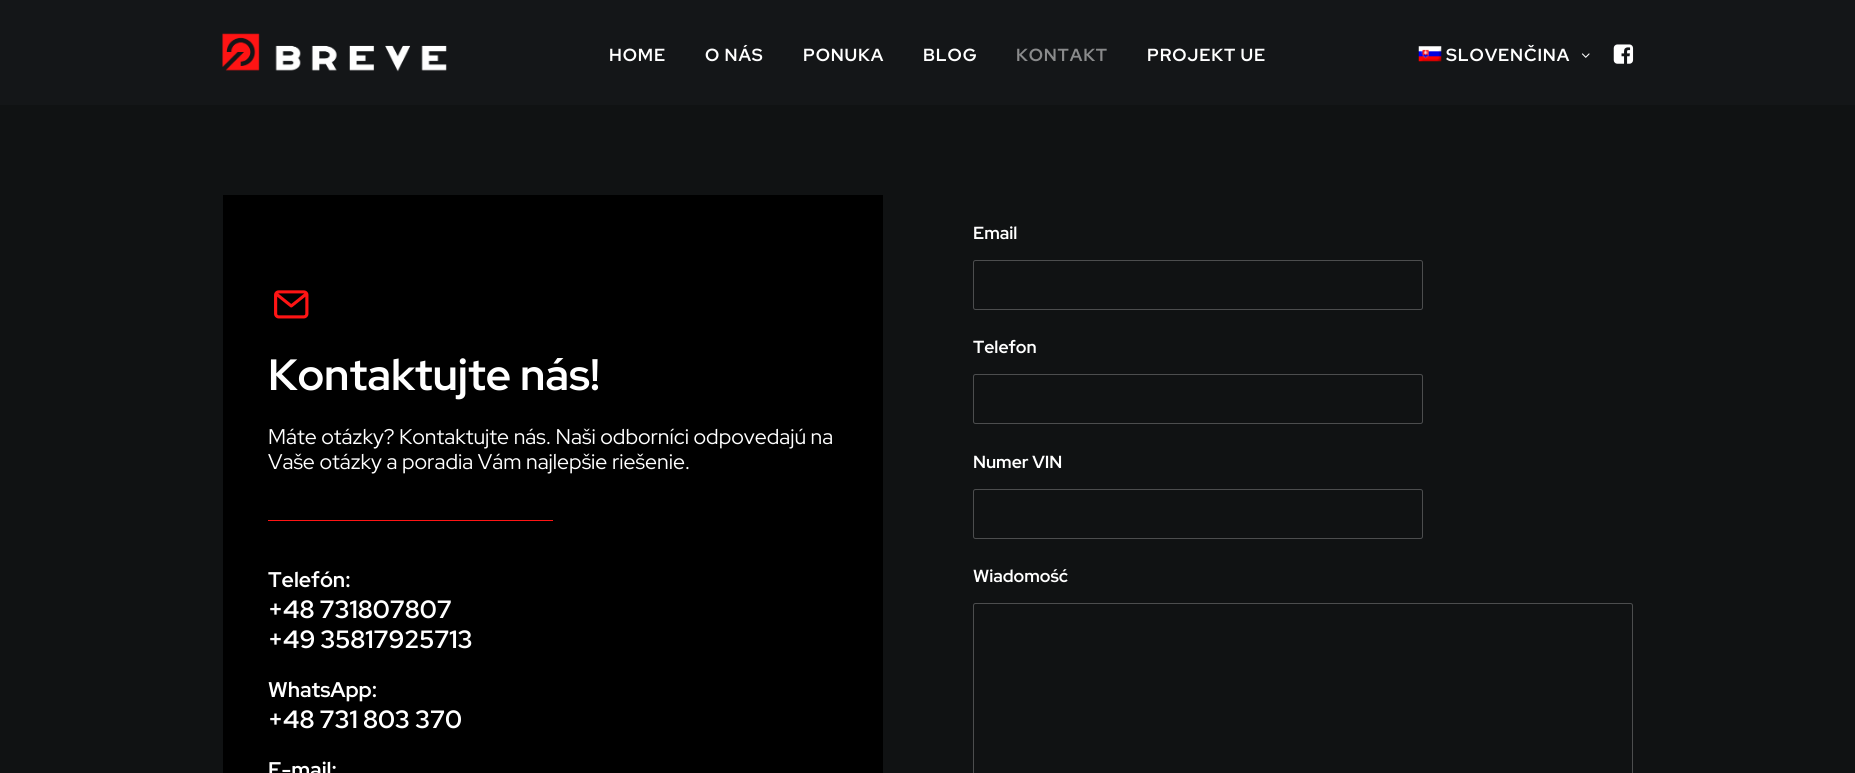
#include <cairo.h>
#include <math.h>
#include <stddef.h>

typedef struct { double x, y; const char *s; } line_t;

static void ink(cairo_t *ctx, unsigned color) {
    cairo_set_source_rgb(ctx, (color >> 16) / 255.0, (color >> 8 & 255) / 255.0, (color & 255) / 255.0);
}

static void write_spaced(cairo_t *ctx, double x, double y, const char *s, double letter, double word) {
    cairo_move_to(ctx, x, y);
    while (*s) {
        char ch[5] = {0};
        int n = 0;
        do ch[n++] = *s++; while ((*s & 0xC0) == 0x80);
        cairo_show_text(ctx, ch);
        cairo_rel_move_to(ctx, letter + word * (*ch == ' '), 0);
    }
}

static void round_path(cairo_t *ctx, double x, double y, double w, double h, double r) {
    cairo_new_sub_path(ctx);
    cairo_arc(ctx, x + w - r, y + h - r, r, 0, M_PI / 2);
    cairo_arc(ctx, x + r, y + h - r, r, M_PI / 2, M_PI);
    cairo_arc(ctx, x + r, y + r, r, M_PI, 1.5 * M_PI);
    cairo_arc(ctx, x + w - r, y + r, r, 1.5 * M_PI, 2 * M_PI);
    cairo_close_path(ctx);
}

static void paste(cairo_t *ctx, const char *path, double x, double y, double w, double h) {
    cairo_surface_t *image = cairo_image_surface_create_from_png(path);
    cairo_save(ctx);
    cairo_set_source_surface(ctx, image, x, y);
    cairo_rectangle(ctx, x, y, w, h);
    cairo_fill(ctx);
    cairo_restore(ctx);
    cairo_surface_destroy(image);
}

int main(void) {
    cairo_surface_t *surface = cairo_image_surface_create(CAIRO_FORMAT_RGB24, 1855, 773);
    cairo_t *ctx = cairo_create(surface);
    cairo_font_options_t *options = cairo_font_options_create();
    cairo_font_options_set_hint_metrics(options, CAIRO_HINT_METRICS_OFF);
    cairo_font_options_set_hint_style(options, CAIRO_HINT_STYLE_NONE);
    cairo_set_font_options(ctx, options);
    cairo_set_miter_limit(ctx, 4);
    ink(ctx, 0x101213);
    cairo_paint(ctx);
    ink(ctx, 0x141618);
    cairo_rectangle(ctx, 0, 0, 1855, 105);
    cairo_fill(ctx);
    paste(ctx, "media/1.png", 222, 33, 225, 39);
    cairo_select_font_face(ctx, "Red Hat Display", CAIRO_FONT_SLANT_NORMAL, CAIRO_FONT_WEIGHT_BOLD);
    cairo_set_font_size(ctx, 17.5);
    ink(ctx, 0xFFFFFF);
    {
        static const line_t items[] = {
            {609, 61, "HOME"},
            {705, 61, "O NÁS"},
            {803, 61, "PONUKA"},
            {923, 61, "BLOG"},
        };
        for (size_t i = 0; i < sizeof items / sizeof *items; i++) {
            write_spaced(ctx, items[i].x, items[i].y, items[i].s, 0.9, 0);
        }
    }
    ink(ctx, 0x8A8B8C);
    write_spaced(ctx, 1016, 61, "KONTAKT", 0.9, 0);
    ink(ctx, 0xFFFFFF);
    write_spaced(ctx, 1147, 61, "PROJEKT UE", 0.9, 0);
    paste(ctx, "media/2.png", 1418, 46, 24, 16);
    write_spaced(ctx, 1446, 61, "SLOVENČINA", 0.9, 0);
    paste(ctx, "media/3.png", 1581, 53, 9, 5);
    paste(ctx, "media/4.png", 1613, 44, 21, 20);
    ink(ctx, 0x000000);
    cairo_rectangle(ctx, 223, 195, 660, 578);
    cairo_fill(ctx);
    paste(ctx, "media/5.png", 274, 290, 35, 29);
    cairo_set_font_size(ctx, 43.75);
    ink(ctx, 0xFFFFFF);
    cairo_move_to(ctx, 268, 390);
    cairo_show_text(ctx, "Kontaktujte nás!");
    cairo_select_font_face(ctx, "Red Hat Display", CAIRO_FONT_SLANT_NORMAL, CAIRO_FONT_WEIGHT_NORMAL);
    cairo_set_font_size(ctx, 21.25);
    cairo_move_to(ctx, 268, 444);
    cairo_show_text(ctx, "Máte otázky? Kontaktujte nás. Naši odborníci odpovedajú na");
    cairo_move_to(ctx, 268, 469);
    cairo_show_text(ctx, "Vaše otázky a poradia Vám najlepšie riešenie.");
    ink(ctx, 0xFF1414);
    cairo_rectangle(ctx, 268, 520, 285, 1);
    cairo_fill(ctx);
    cairo_select_font_face(ctx, "Red Hat Display", CAIRO_FONT_SLANT_NORMAL, CAIRO_FONT_WEIGHT_BOLD);
    ink(ctx, 0xFFFFFF);
    cairo_move_to(ctx, 268, 587);
    cairo_show_text(ctx, "Telefón:");
    cairo_set_font_size(ctx, 25);
    cairo_move_to(ctx, 268, 618);
    cairo_show_text(ctx, "+48 731807807");
    cairo_move_to(ctx, 268, 648);
    cairo_show_text(ctx, "+49 35817925713");
    cairo_set_font_size(ctx, 21.25);
    cairo_move_to(ctx, 268, 697);
    cairo_show_text(ctx, "WhatsApp:");
    cairo_set_font_size(ctx, 25);
    cairo_move_to(ctx, 268, 728);
    cairo_show_text(ctx, "+48 731 803 370");
    cairo_set_font_size(ctx, 21.25);
    cairo_move_to(ctx, 268, 777);
    cairo_show_text(ctx, "E-mail:");
    cairo_set_font_size(ctx, 17.5);
    cairo_move_to(ctx, 973, 239);
    cairo_show_text(ctx, "Email");
    round_path(ctx, 973.5, 260.5, 449, 49, 2);
    ink(ctx, 0x4C4D4E);
    cairo_set_line_width(ctx, 1);
    cairo_stroke(ctx);
    ink(ctx, 0xFFFFFF);
    cairo_move_to(ctx, 973, 353);
    cairo_show_text(ctx, "Telefon");
    round_path(ctx, 973.5, 374.5, 449, 49, 2);
    ink(ctx, 0x4C4D4E);
    cairo_stroke(ctx);
    ink(ctx, 0xFFFFFF);
    cairo_move_to(ctx, 973, 468);
    cairo_show_text(ctx, "Numer VIN");
    round_path(ctx, 973.5, 489.5, 449, 49, 2);
    ink(ctx, 0x4C4D4E);
    cairo_stroke(ctx);
    ink(ctx, 0xFFFFFF);
    cairo_move_to(ctx, 973, 582);
    cairo_show_text(ctx, "Wiadomość");
    round_path(ctx, 973.5, 603.5, 659, 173, 2);
    ink(ctx, 0x4C4D4E);
    cairo_stroke(ctx);
    cairo_surface_write_to_png(surface, "image.png");
    cairo_font_options_destroy(options);
    cairo_destroy(ctx);
    cairo_surface_destroy(surface);
    return 0;
}
